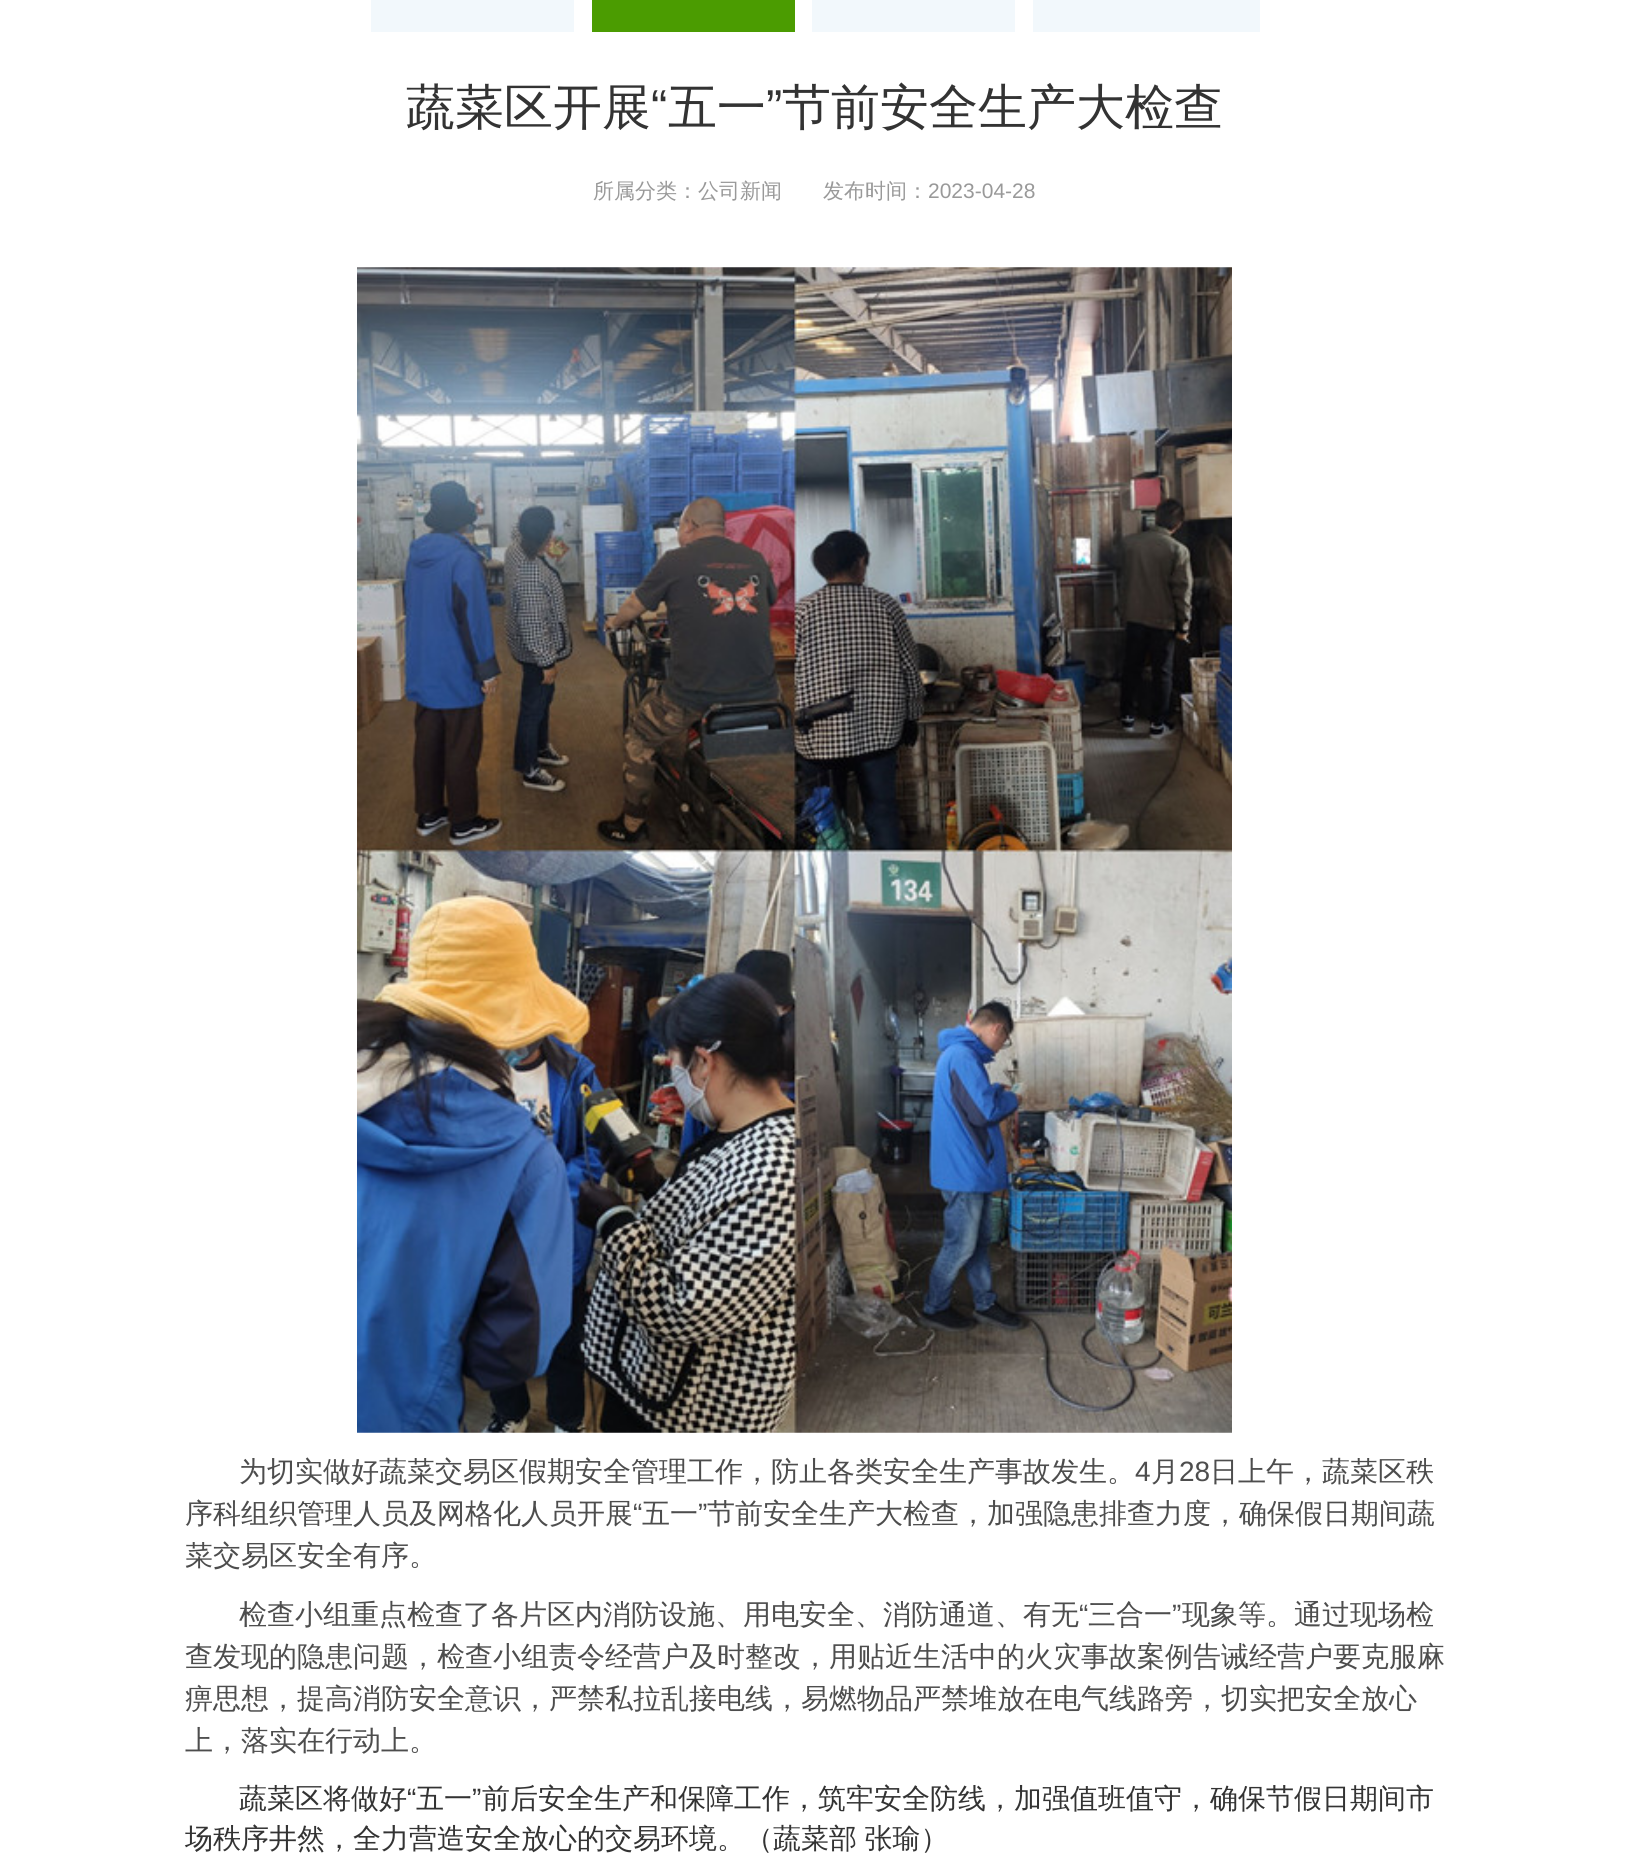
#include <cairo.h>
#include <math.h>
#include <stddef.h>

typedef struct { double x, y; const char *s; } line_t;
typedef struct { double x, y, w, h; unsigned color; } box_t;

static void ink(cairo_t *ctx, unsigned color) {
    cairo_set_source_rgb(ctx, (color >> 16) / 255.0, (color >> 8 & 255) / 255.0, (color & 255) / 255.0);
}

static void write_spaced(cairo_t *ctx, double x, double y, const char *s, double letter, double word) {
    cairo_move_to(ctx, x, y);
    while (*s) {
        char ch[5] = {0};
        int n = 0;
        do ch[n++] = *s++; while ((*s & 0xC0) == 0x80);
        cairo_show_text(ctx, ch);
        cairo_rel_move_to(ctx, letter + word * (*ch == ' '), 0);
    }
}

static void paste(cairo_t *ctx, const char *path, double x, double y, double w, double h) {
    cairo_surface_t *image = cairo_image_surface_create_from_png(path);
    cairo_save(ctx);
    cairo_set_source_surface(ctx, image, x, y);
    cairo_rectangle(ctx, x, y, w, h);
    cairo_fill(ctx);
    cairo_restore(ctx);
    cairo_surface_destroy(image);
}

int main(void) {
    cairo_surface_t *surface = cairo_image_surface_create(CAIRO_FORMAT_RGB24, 1628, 1857);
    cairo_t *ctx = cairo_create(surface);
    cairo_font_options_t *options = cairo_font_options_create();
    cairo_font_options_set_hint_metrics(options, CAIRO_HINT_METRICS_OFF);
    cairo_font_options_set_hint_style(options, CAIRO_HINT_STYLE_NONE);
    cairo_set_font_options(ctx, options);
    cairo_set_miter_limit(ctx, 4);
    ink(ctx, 0xFFFFFF);
    cairo_paint(ctx);
    {
        static const box_t items[] = {
            {371, 0, 203, 32, 0xF2F8FC},
            {592, 0, 203, 32, 0x4B9C01},
            {812, 0, 203, 32, 0xF2F8FC},
            {1033, 0, 227, 32, 0xF2F8FC},
        };
        for (size_t i = 0; i < sizeof items / sizeof *items; i++) {
            ink(ctx, items[i].color);
            cairo_rectangle(ctx, items[i].x, items[i].y, items[i].w, items[i].h);
            cairo_fill(ctx);
        }
    }
    cairo_select_font_face(ctx, "WenQuanYi Zen Hei Medium", CAIRO_FONT_SLANT_NORMAL, CAIRO_FONT_WEIGHT_NORMAL);
    cairo_set_font_size(ctx, 49);
    ink(ctx, 0x333333);
    cairo_move_to(ctx, 406, 124);
    cairo_show_text(ctx, "蔬菜区开展");
    cairo_select_font_face(ctx, "Liberation Sans", CAIRO_FONT_SLANT_NORMAL, CAIRO_FONT_WEIGHT_NORMAL);
    cairo_move_to(ctx, 651, 124);
    cairo_show_text(ctx, "“");
    cairo_select_font_face(ctx, "WenQuanYi Zen Hei Medium", CAIRO_FONT_SLANT_NORMAL, CAIRO_FONT_WEIGHT_NORMAL);
    cairo_move_to(ctx, 668, 124);
    cairo_show_text(ctx, "五一");
    cairo_select_font_face(ctx, "Liberation Sans", CAIRO_FONT_SLANT_NORMAL, CAIRO_FONT_WEIGHT_NORMAL);
    cairo_move_to(ctx, 766, 124);
    cairo_show_text(ctx, "”");
    cairo_select_font_face(ctx, "WenQuanYi Zen Hei Medium", CAIRO_FONT_SLANT_NORMAL, CAIRO_FONT_WEIGHT_NORMAL);
    cairo_move_to(ctx, 782, 124);
    cairo_show_text(ctx, "节前安全生产大检查");
    cairo_set_font_size(ctx, 21);
    ink(ctx, 0x999999);
    cairo_move_to(ctx, 593, 198);
    cairo_show_text(ctx, "所属分类：公司新闻");
    cairo_move_to(ctx, 823, 198);
    cairo_show_text(ctx, "发布时间：");
    cairo_select_font_face(ctx, "Liberation Sans", CAIRO_FONT_SLANT_NORMAL, CAIRO_FONT_WEIGHT_NORMAL);
    cairo_move_to(ctx, 928, 198);
    cairo_show_text(ctx, "2023-04-28");
    paste(ctx, "media/1.png", 357, 267, 875, 1166);
    cairo_select_font_face(ctx, "WenQuanYi Zen Hei Medium", CAIRO_FONT_SLANT_NORMAL, CAIRO_FONT_WEIGHT_NORMAL);
    cairo_set_font_size(ctx, 28);
    ink(ctx, 0x4D4D4D);
    cairo_move_to(ctx, 239, 1481);
    cairo_show_text(ctx, "为切实做好蔬菜交易区假期安全管理工作，防止各类安全生产事故发生。");
    cairo_select_font_face(ctx, "Liberation Sans", CAIRO_FONT_SLANT_NORMAL, CAIRO_FONT_WEIGHT_NORMAL);
    cairo_move_to(ctx, 1135, 1481);
    cairo_show_text(ctx, "4");
    cairo_select_font_face(ctx, "WenQuanYi Zen Hei Medium", CAIRO_FONT_SLANT_NORMAL, CAIRO_FONT_WEIGHT_NORMAL);
    cairo_move_to(ctx, 1151, 1481);
    cairo_show_text(ctx, "月");
    cairo_select_font_face(ctx, "Liberation Sans", CAIRO_FONT_SLANT_NORMAL, CAIRO_FONT_WEIGHT_NORMAL);
    cairo_move_to(ctx, 1179, 1481);
    cairo_show_text(ctx, "28");
    cairo_select_font_face(ctx, "WenQuanYi Zen Hei Medium", CAIRO_FONT_SLANT_NORMAL, CAIRO_FONT_WEIGHT_NORMAL);
    cairo_move_to(ctx, 1210, 1481);
    cairo_show_text(ctx, "日上午，蔬菜区秩");
    cairo_move_to(ctx, 185, 1523);
    cairo_show_text(ctx, "序科组织管理人员及网格化人员开展");
    cairo_select_font_face(ctx, "Liberation Sans", CAIRO_FONT_SLANT_NORMAL, CAIRO_FONT_WEIGHT_NORMAL);
    cairo_move_to(ctx, 633, 1523);
    cairo_show_text(ctx, "“");
    cairo_select_font_face(ctx, "WenQuanYi Zen Hei Medium", CAIRO_FONT_SLANT_NORMAL, CAIRO_FONT_WEIGHT_NORMAL);
    cairo_move_to(ctx, 642, 1523);
    cairo_show_text(ctx, "五一");
    cairo_select_font_face(ctx, "Liberation Sans", CAIRO_FONT_SLANT_NORMAL, CAIRO_FONT_WEIGHT_NORMAL);
    cairo_move_to(ctx, 698, 1523);
    cairo_show_text(ctx, "”");
    cairo_select_font_face(ctx, "WenQuanYi Zen Hei Medium", CAIRO_FONT_SLANT_NORMAL, CAIRO_FONT_WEIGHT_NORMAL);
    {
        static const line_t items[] = {
            {707, 1523, "节前安全生产大检查，加强隐患排查力度，确保假日期间蔬"},
            {185, 1565, "菜交易区安全有序。"},
            {239, 1624, "检查小组重点检查了各片区内消防设施、用电安全、消防通道、有无"},
        };
        for (size_t i = 0; i < sizeof items / sizeof *items; i++) {
            cairo_move_to(ctx, items[i].x, items[i].y);
            cairo_show_text(ctx, items[i].s);
        }
    }
    cairo_select_font_face(ctx, "Liberation Sans", CAIRO_FONT_SLANT_NORMAL, CAIRO_FONT_WEIGHT_NORMAL);
    cairo_move_to(ctx, 1079, 1624);
    cairo_show_text(ctx, "“");
    cairo_select_font_face(ctx, "WenQuanYi Zen Hei Medium", CAIRO_FONT_SLANT_NORMAL, CAIRO_FONT_WEIGHT_NORMAL);
    cairo_move_to(ctx, 1088, 1624);
    cairo_show_text(ctx, "三合一");
    cairo_select_font_face(ctx, "Liberation Sans", CAIRO_FONT_SLANT_NORMAL, CAIRO_FONT_WEIGHT_NORMAL);
    cairo_move_to(ctx, 1172, 1624);
    cairo_show_text(ctx, "”");
    cairo_select_font_face(ctx, "WenQuanYi Zen Hei Medium", CAIRO_FONT_SLANT_NORMAL, CAIRO_FONT_WEIGHT_NORMAL);
    {
        static const line_t items[] = {
            {1182, 1624, "现象等。通过现场检"},
            {185, 1666, "查发现的隐患问题，检查小组责令经营户及时整改，用贴近生活中的火灾事故案例告诫经营户要克服麻"},
            {185, 1708, "痹思想，提高消防安全意识，严禁私拉乱接电线，易燃物品严禁堆放在电气线路旁，切实把安全放心"},
            {185, 1750, "上，落实在行动上。"},
        };
        for (size_t i = 0; i < sizeof items / sizeof *items; i++) {
            cairo_move_to(ctx, items[i].x, items[i].y);
            cairo_show_text(ctx, items[i].s);
        }
    }
    ink(ctx, 0x333333);
    cairo_move_to(ctx, 239, 1808);
    cairo_show_text(ctx, "蔬菜区将做好");
    cairo_select_font_face(ctx, "Liberation Sans", CAIRO_FONT_SLANT_NORMAL, CAIRO_FONT_WEIGHT_NORMAL);
    cairo_move_to(ctx, 407, 1808);
    cairo_show_text(ctx, "“");
    cairo_select_font_face(ctx, "WenQuanYi Zen Hei Medium", CAIRO_FONT_SLANT_NORMAL, CAIRO_FONT_WEIGHT_NORMAL);
    cairo_move_to(ctx, 416, 1808);
    cairo_show_text(ctx, "五一");
    cairo_select_font_face(ctx, "Liberation Sans", CAIRO_FONT_SLANT_NORMAL, CAIRO_FONT_WEIGHT_NORMAL);
    cairo_move_to(ctx, 472, 1808);
    cairo_show_text(ctx, "”");
    cairo_select_font_face(ctx, "WenQuanYi Zen Hei Medium", CAIRO_FONT_SLANT_NORMAL, CAIRO_FONT_WEIGHT_NORMAL);
    cairo_move_to(ctx, 482, 1808);
    cairo_show_text(ctx, "前后安全生产和保障工作，筑牢安全防线，加强值班值守，确保节假日期间市");
    write_spaced(ctx, 185, 1848, "场秩序井然，全力营造安全放心的交易环境。（蔬菜部 张瑜）", 0, -1);
    cairo_surface_write_to_png(surface, "image.png");
    cairo_font_options_destroy(options);
    cairo_destroy(ctx);
    cairo_surface_destroy(surface);
    return 0;
}
